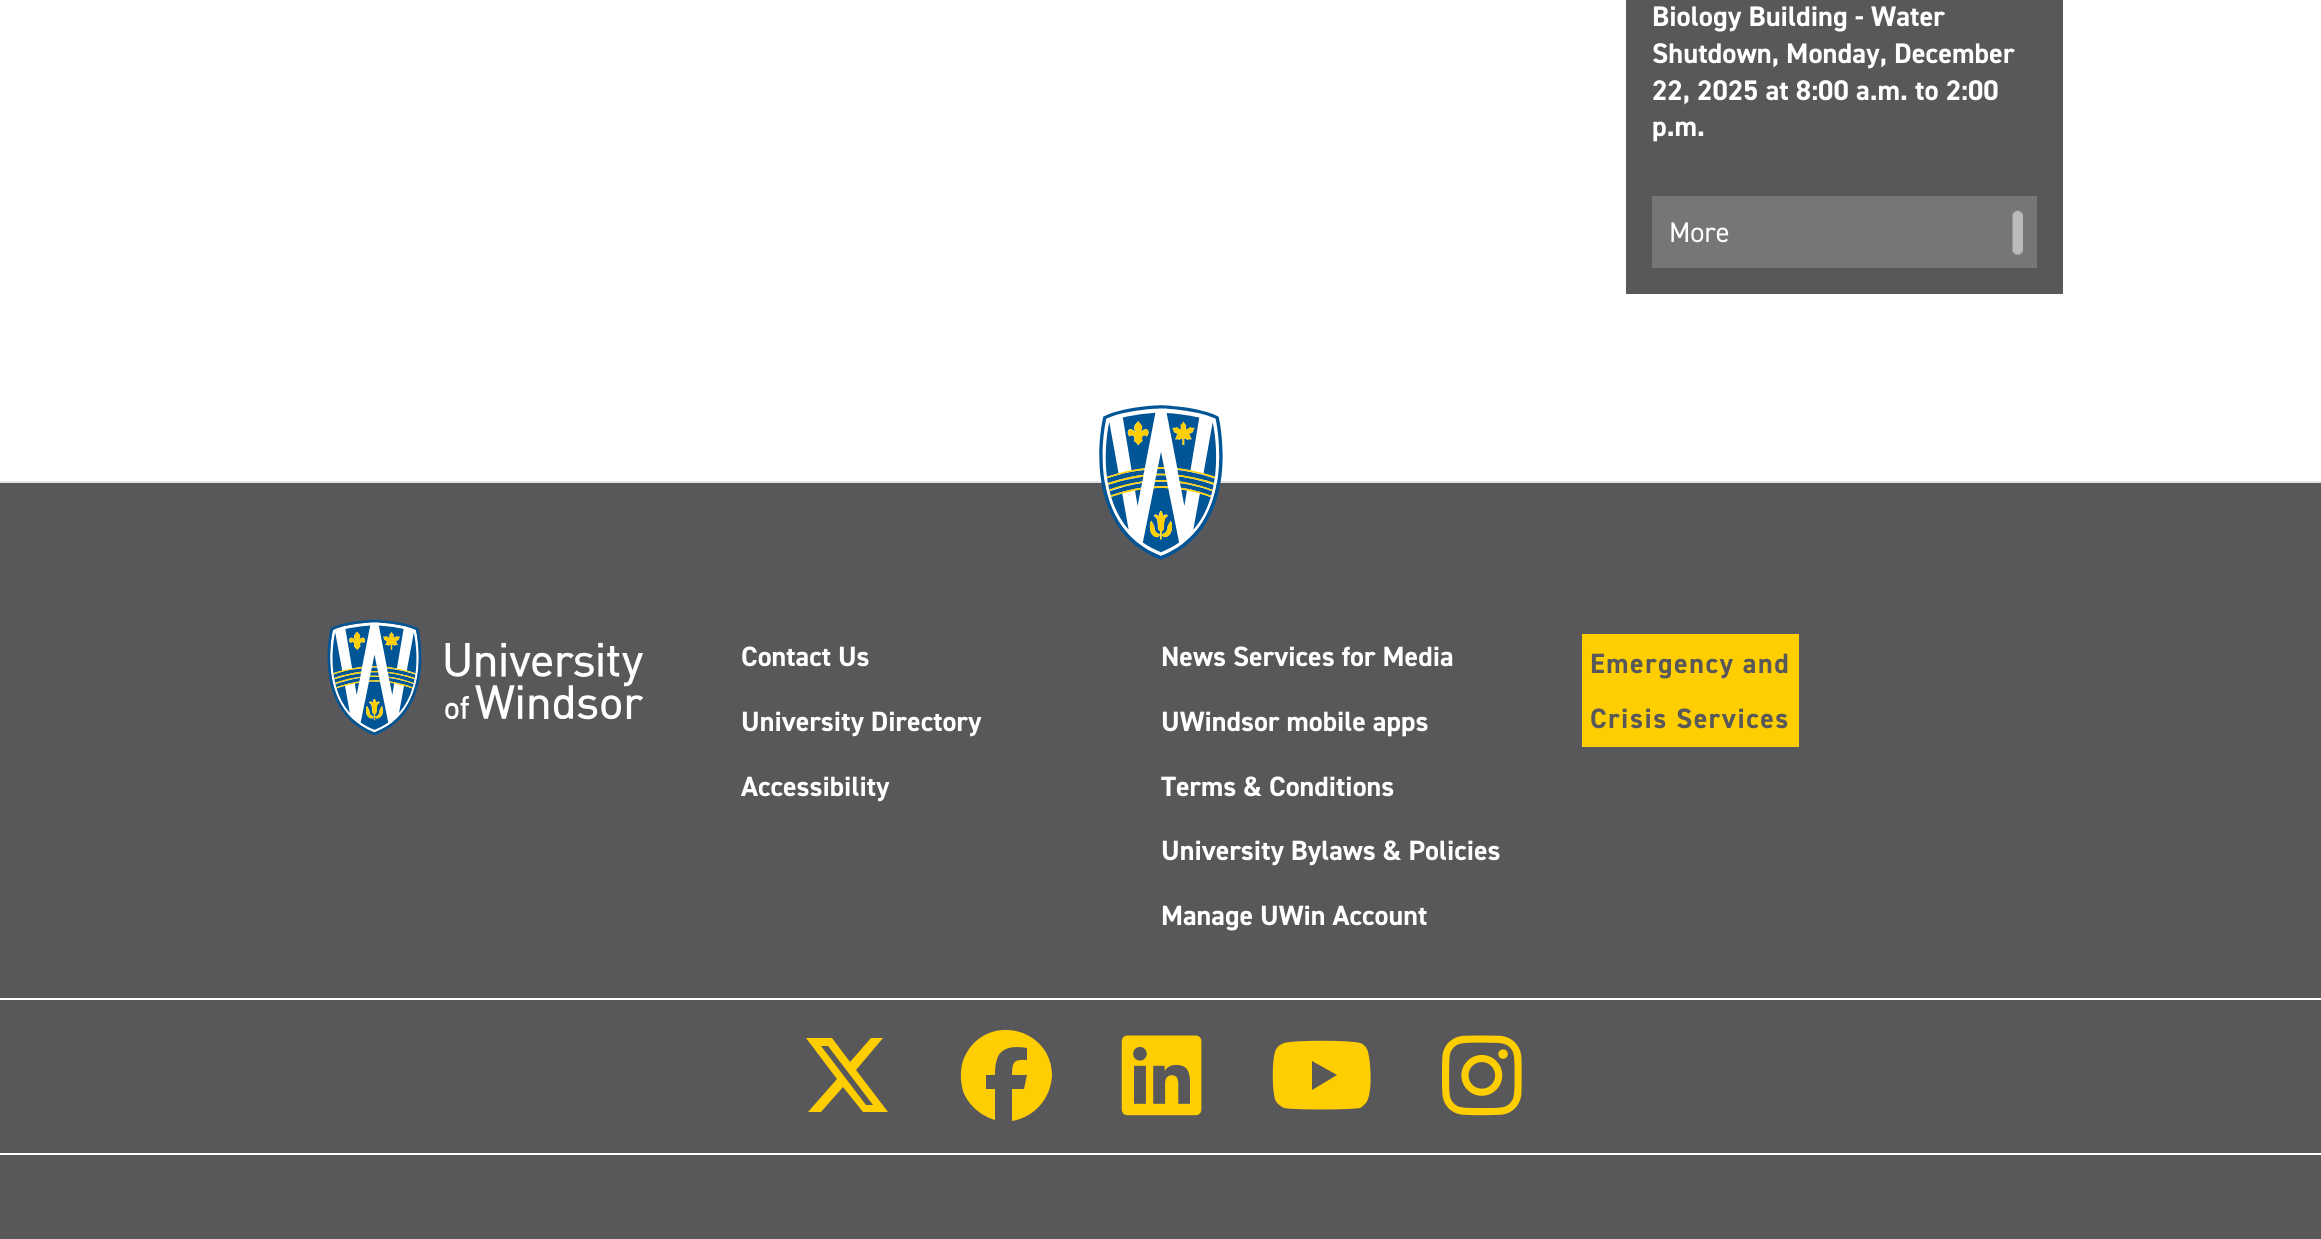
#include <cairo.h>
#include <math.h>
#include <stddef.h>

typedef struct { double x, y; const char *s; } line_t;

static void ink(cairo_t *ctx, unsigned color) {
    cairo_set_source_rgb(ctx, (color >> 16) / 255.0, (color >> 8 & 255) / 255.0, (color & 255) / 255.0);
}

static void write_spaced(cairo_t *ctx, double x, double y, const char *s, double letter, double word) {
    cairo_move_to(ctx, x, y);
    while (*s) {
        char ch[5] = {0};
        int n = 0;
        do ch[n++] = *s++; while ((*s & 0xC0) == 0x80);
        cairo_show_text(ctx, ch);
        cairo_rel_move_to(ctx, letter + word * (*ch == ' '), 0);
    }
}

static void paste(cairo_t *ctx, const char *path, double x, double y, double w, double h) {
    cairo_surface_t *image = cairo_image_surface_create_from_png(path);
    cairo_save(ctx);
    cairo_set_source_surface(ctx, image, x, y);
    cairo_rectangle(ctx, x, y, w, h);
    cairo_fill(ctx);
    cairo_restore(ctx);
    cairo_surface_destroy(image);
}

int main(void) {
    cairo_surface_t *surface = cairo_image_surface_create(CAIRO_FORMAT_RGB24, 2321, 1239);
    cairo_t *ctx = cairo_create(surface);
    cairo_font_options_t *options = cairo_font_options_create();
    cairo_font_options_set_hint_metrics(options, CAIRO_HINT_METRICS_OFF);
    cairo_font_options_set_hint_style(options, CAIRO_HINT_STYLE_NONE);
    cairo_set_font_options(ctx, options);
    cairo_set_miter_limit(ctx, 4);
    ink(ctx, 0xFFFFFF);
    cairo_paint(ctx);
    ink(ctx, 0x58585B);
    cairo_rectangle(ctx, 1626, 0, 437, 294);
    cairo_fill(ctx);
    cairo_select_font_face(ctx, "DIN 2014", CAIRO_FONT_SLANT_NORMAL, CAIRO_FONT_WEIGHT_BOLD);
    cairo_set_font_size(ctx, 28.4);
    ink(ctx, 0xFFFFFF);
    {
        static const line_t items[] = {
            {1652, 26, "Biology Building - Water"},
            {1652, 63, "Shutdown, Monday, December"},
            {1652, 100, "22, 2025 at 8:00 a.m. to 2:00"},
            {1652, 136, "p.m."},
        };
        for (size_t i = 0; i < sizeof items / sizeof *items; i++) {
            cairo_move_to(ctx, items[i].x, items[i].y);
            cairo_show_text(ctx, items[i].s);
        }
    }
    ink(ctx, 0x767676);
    cairo_rectangle(ctx, 1652, 196, 385, 72);
    cairo_fill(ctx);
    cairo_select_font_face(ctx, "DIN 2014", CAIRO_FONT_SLANT_NORMAL, CAIRO_FONT_WEIGHT_NORMAL);
    ink(ctx, 0xFFFFFF);
    cairo_move_to(ctx, 1669, 242);
    cairo_show_text(ctx, "More");
    paste(ctx, "media/1.png", 2012, 210, 11, 45);
    ink(ctx, 0x58585B);
    cairo_rectangle(ctx, 0, 483, 2321, 756);
    cairo_fill(ctx);
    ink(ctx, 0xE5E5E5);
    cairo_rectangle(ctx, 0, 481, 2321, 2);
    cairo_fill(ctx);
    paste(ctx, "media/2.png", 1099, 405, 124, 155);
    paste(ctx, "media/3.png", 327, 619, 317, 117);
    cairo_select_font_face(ctx, "DIN 2014", CAIRO_FONT_SLANT_NORMAL, CAIRO_FONT_WEIGHT_BOLD);
    cairo_set_font_size(ctx, 28);
    ink(ctx, 0xFFFFFF);
    {
        static const line_t items[] = {
            {741, 666, "Contact Us"},
            {741, 731, "University Directory"},
            {741, 796, "Accessibility"},
            {1161, 666, "News Services for Media"},
            {1161, 731, "UWindsor mobile apps"},
            {1161, 796, "Terms & Conditions"},
            {1161, 860, "University Bylaws & Policies"},
            {1161, 925, "Manage UWin Account"},
        };
        for (size_t i = 0; i < sizeof items / sizeof *items; i++) {
            cairo_move_to(ctx, items[i].x, items[i].y);
            cairo_show_text(ctx, items[i].s);
        }
    }
    ink(ctx, 0xFFCE00);
    cairo_rectangle(ctx, 1582, 634, 217, 113);
    cairo_fill(ctx);
    ink(ctx, 0x58585B);
    write_spaced(ctx, 1590, 673, "Emergency and", 1.5, 0);
    write_spaced(ctx, 1590, 728, "Crisis Services", 1.5, 0);
    ink(ctx, 0xFFFFFF);
    cairo_rectangle(ctx, 0, 998, 2321, 2);
    cairo_fill(ctx);
    cairo_rectangle(ctx, 0, 1153, 2321, 2);
    cairo_fill(ctx);
    ink(ctx, 0xFFCE00);
    cairo_new_path(ctx);
    cairo_move_to(ctx, 871, 1038);
    cairo_line_to(ctx, 883, 1038);
    cairo_line_to(ctx, 871, 1038);
    cairo_line_to(ctx, 883, 1038);
    cairo_line_to(ctx, 856, 1070);
    cairo_line_to(ctx, 888, 1112);
    cairo_line_to(ctx, 863, 1112);
    cairo_line_to(ctx, 843, 1087);
    cairo_line_to(ctx, 821, 1112);
    cairo_line_to(ctx, 808, 1112);
    cairo_line_to(ctx, 837, 1079);
    cairo_line_to(ctx, 806, 1038);
    cairo_line_to(ctx, 832, 1038);
    cairo_line_to(ctx, 850, 1062);
    cairo_close_path(ctx);
    cairo_move_to(ctx, 866, 1105);
    cairo_line_to(ctx, 873, 1105);
    cairo_line_to(ctx, 866, 1105);
    cairo_line_to(ctx, 873, 1105);
    cairo_line_to(ctx, 828, 1046);
    cairo_line_to(ctx, 821, 1046);
    cairo_close_path(ctx);
    cairo_fill(ctx);
    cairo_new_path(ctx);
    cairo_move_to(ctx, 1052, 1075);
    cairo_curve_to(ctx, 1051, 1026, 984, 1012, 964, 1058);
    cairo_curve_to(ctx, 960, 1068, 960, 1080, 963, 1091);
    cairo_curve_to(ctx, 968, 1105, 981, 1116, 995, 1120);
    cairo_line_to(ctx, 995, 1089);
    cairo_line_to(ctx, 986, 1089);
    cairo_line_to(ctx, 986, 1075);
    cairo_line_to(ctx, 995, 1075);
    cairo_curve_to(ctx, 995, 1070, 995, 1065, 997, 1059);
    cairo_curve_to(ctx, 1001, 1046, 1016, 1046, 1027, 1048);
    cairo_line_to(ctx, 1027, 1060);
    cairo_curve_to(ctx, 1014, 1059, 1012, 1062, 1012, 1075);
    cairo_line_to(ctx, 1027, 1075);
    cairo_line_to(ctx, 1024, 1089);
    cairo_line_to(ctx, 1012, 1089);
    cairo_line_to(ctx, 1012, 1121);
    cairo_curve_to(ctx, 1035, 1117, 1051, 1098, 1052, 1075);
    cairo_close_path(ctx);
    cairo_fill(ctx);
    paste(ctx, "media/4.png", 1121, 1035, 81, 81);
    cairo_new_path(ctx);
    cairo_move_to(ctx, 1368, 1052);
    cairo_curve_to(ctx, 1367, 1048, 1364, 1044, 1360, 1043);
    cairo_curve_to(ctx, 1350, 1040, 1293, 1040, 1284, 1043);
    cairo_line_to(ctx, 1280, 1045);
    cairo_curve_to(ctx, 1277, 1047, 1276, 1049, 1275, 1052);
    cairo_curve_to(ctx, 1272, 1061, 1272, 1090, 1275, 1099);
    cairo_curve_to(ctx, 1276, 1103, 1280, 1106, 1284, 1108);
    cairo_curve_to(ctx, 1294, 1110, 1349, 1110, 1360, 1108);
    cairo_curve_to(ctx, 1362, 1107, 1363, 1106, 1365, 1104);
    cairo_curve_to(ctx, 1373, 1097, 1371, 1062, 1368, 1052);
    cairo_close_path(ctx);
    cairo_move_to(ctx, 1312, 1090);
    cairo_line_to(ctx, 1312, 1061);
    cairo_line_to(ctx, 1312, 1090);
    cairo_line_to(ctx, 1312, 1061);
    cairo_line_to(ctx, 1337, 1075);
    cairo_close_path(ctx);
    cairo_fill(ctx);
    paste(ctx, "media/5.png", 1442, 1035, 80, 81);
    cairo_surface_write_to_png(surface, "image.png");
    cairo_font_options_destroy(options);
    cairo_destroy(ctx);
    cairo_surface_destroy(surface);
    return 0;
}
